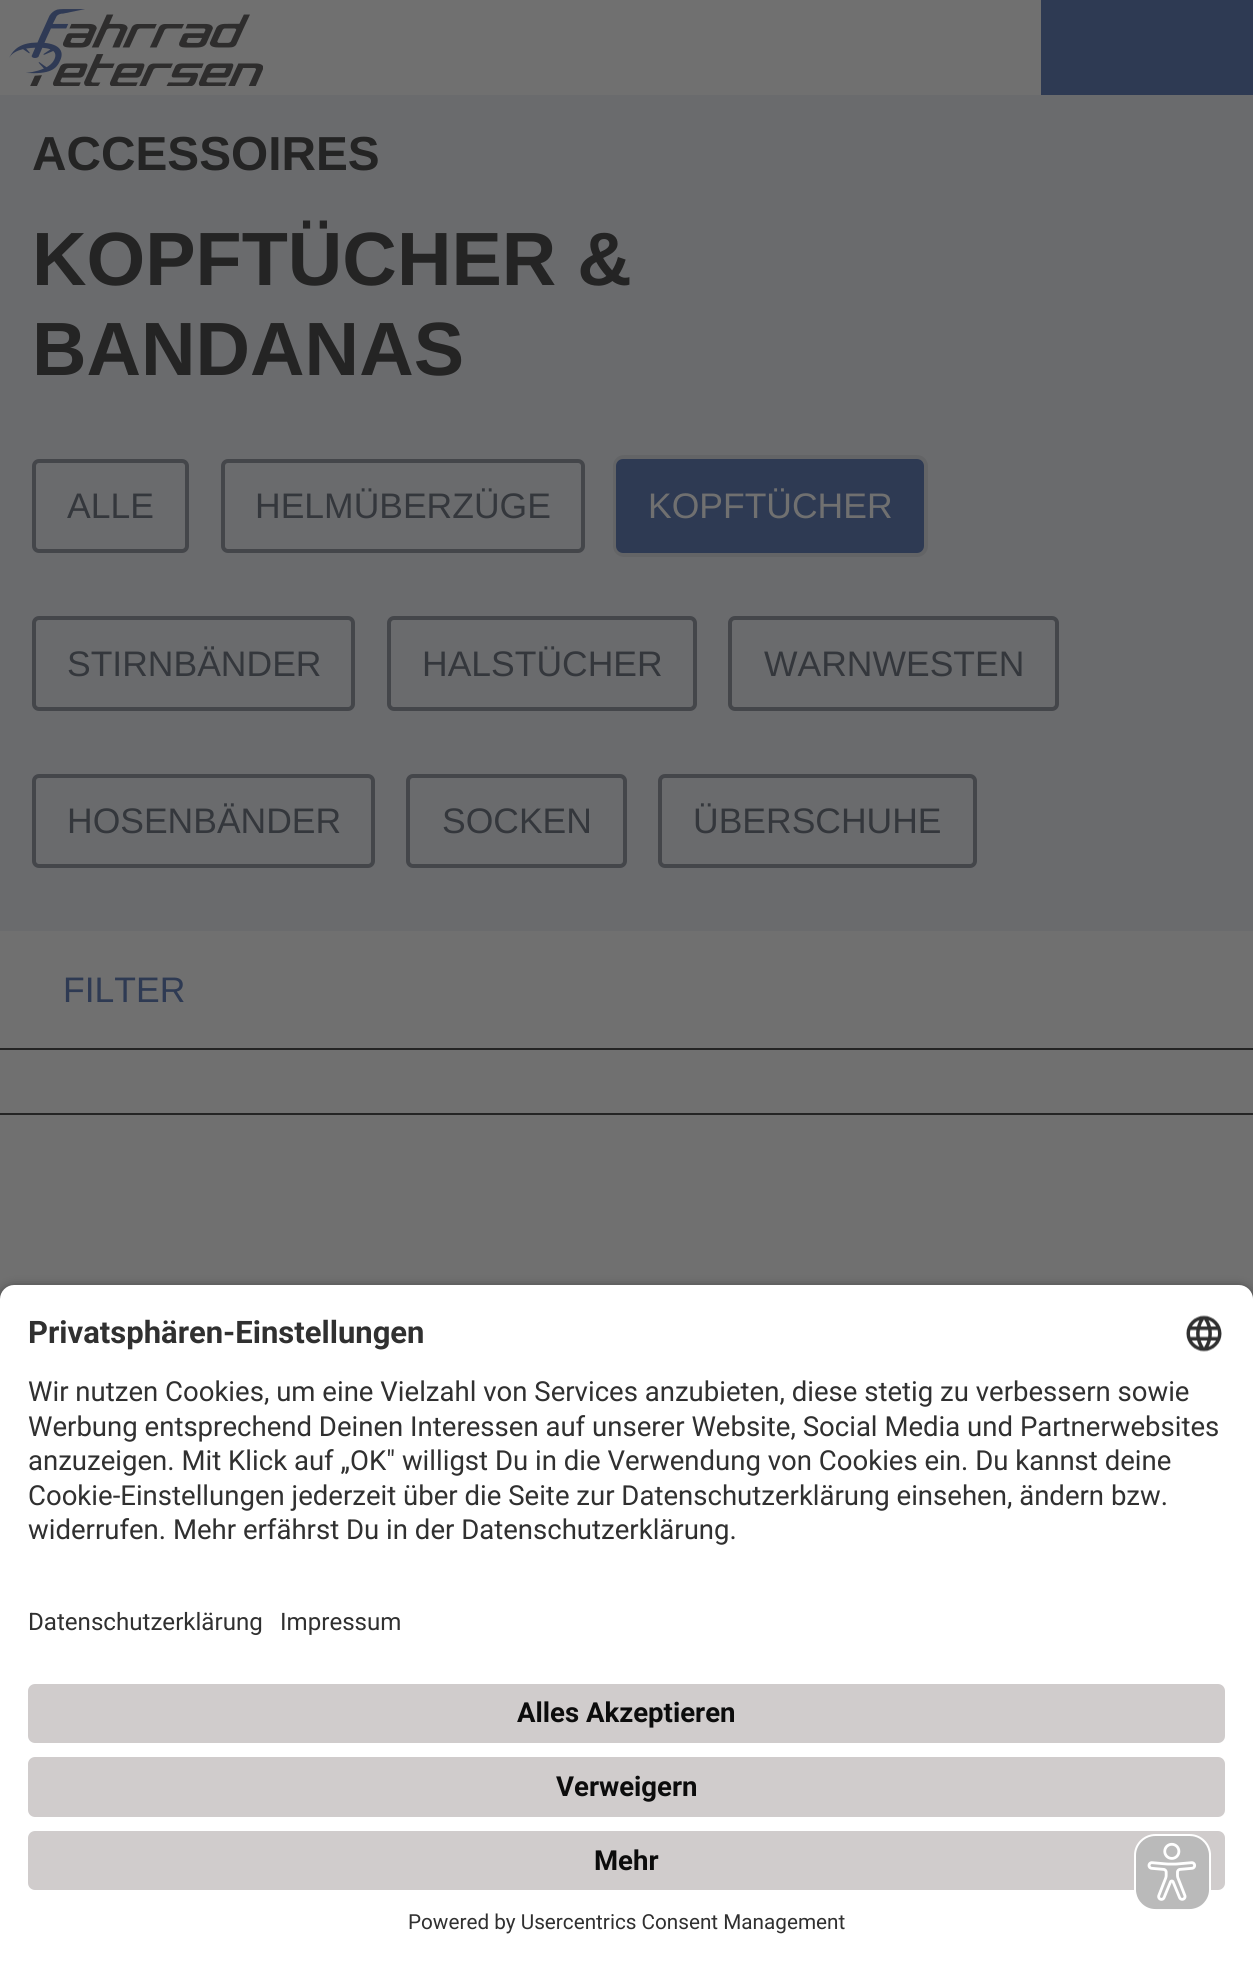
#include <cairo.h>
#include <math.h>
#include <stddef.h>

typedef struct { double x, y; const char *s; } line_t;

static void ink(cairo_t *ctx, unsigned color) {
    cairo_set_source_rgb(ctx, (color >> 16) / 255.0, (color >> 8 & 255) / 255.0, (color & 255) / 255.0);
}

static void round_path(cairo_t *ctx, double x, double y, double w, double h, double r) {
    cairo_new_sub_path(ctx);
    cairo_arc(ctx, x + w - r, y + h - r, r, 0, M_PI / 2);
    cairo_arc(ctx, x + r, y + h - r, r, M_PI / 2, M_PI);
    cairo_arc(ctx, x + r, y + r, r, M_PI, 1.5 * M_PI);
    cairo_arc(ctx, x + w - r, y + r, r, 1.5 * M_PI, 2 * M_PI);
    cairo_close_path(ctx);
}

static void blur_box(cairo_t *ctx, double x, double y, double w, double h, double r, double blur, double alpha) {
    cairo_push_group_with_content(ctx, CAIRO_CONTENT_ALPHA);
    cairo_set_operator(ctx, CAIRO_OPERATOR_SOURCE);
    for (int i = 15; i >= -15 && fmin(w, h) + blur * i / 3 > 0; i -= 2) {
        double e = blur * i / 6;
        cairo_set_source_rgba(ctx, 0, 0, 0, alpha * erfc((i - 1) / 8.5) / 2);
        round_path(ctx, x - e, y - e, w + 2 * e, h + 2 * e, fmax(0, fmin(r + e + blur * .6, fmin(w, h) / 2 + e)));
        cairo_fill(ctx);
    }
    cairo_pattern_t *soft = cairo_pop_group(ctx);
    cairo_mask(ctx, soft);
    cairo_pattern_destroy(soft);
}

static void paste(cairo_t *ctx, const char *path, double x, double y, double w, double h) {
    cairo_surface_t *image = cairo_image_surface_create_from_png(path);
    cairo_save(ctx);
    cairo_set_source_surface(ctx, image, x, y);
    cairo_rectangle(ctx, x, y, w, h);
    cairo_fill(ctx);
    cairo_restore(ctx);
    cairo_surface_destroy(image);
}

int main(void) {
    cairo_surface_t *surface = cairo_image_surface_create(CAIRO_FORMAT_RGB24, 1253, 1962);
    cairo_t *ctx = cairo_create(surface);
    cairo_font_options_t *options = cairo_font_options_create();
    cairo_font_options_set_hint_metrics(options, CAIRO_HINT_METRICS_OFF);
    cairo_font_options_set_hint_style(options, CAIRO_HINT_STYLE_NONE);
    cairo_set_font_options(ctx, options);
    cairo_set_miter_limit(ctx, 4);
    ink(ctx, 0x707070);
    cairo_paint(ctx);
    paste(ctx, "media/1.png", 9, 9, 254, 77);
    ink(ctx, 0x2E3A53);
    cairo_rectangle(ctx, 1041, 0, 212, 95);
    cairo_fill(ctx);
    ink(ctx, 0x6A6B6D);
    cairo_rectangle(ctx, 0, 95, 1253, 836);
    cairo_fill(ctx);
    cairo_select_font_face(ctx, "Liberation Sans", CAIRO_FONT_SLANT_NORMAL, CAIRO_FONT_WEIGHT_BOLD);
    cairo_set_font_size(ctx, 47.75);
    ink(ctx, 0x242424);
    cairo_move_to(ctx, 32, 170);
    cairo_show_text(ctx, "ACCESSOIRES");
    cairo_set_font_size(ctx, 75.5);
    cairo_move_to(ctx, 32, 285);
    cairo_show_text(ctx, "KOPFTÜCHER &");
    cairo_move_to(ctx, 32, 375);
    cairo_show_text(ctx, "BANDANAS");
    round_path(ctx, 34, 461, 153, 90, 5);
    ink(ctx, 0x44464A);
    cairo_set_line_width(ctx, 4);
    cairo_stroke(ctx);
    cairo_select_font_face(ctx, "Liberation Sans", CAIRO_FONT_SLANT_NORMAL, CAIRO_FONT_WEIGHT_NORMAL);
    cairo_set_font_size(ctx, 35.5);
    ink(ctx, 0x34373C);
    cairo_move_to(ctx, 67, 518);
    cairo_show_text(ctx, "ALLE");
    round_path(ctx, 223, 461, 360, 90, 5);
    ink(ctx, 0x44464A);
    cairo_stroke(ctx);
    ink(ctx, 0x34373C);
    cairo_move_to(ctx, 255, 518);
    cairo_show_text(ctx, "HELMÜBERZÜGE");
    round_path(ctx, 615, 457, 311, 98, 9);
    ink(ctx, 0x636466);
    cairo_stroke(ctx);
    ink(ctx, 0x2E3A53);
    round_path(ctx, 616, 459, 308, 94, 7);
    cairo_fill(ctx);
    ink(ctx, 0x707070);
    cairo_move_to(ctx, 648, 518);
    cairo_show_text(ctx, "KOPFTÜCHER");
    round_path(ctx, 34, 618, 319, 91, 5);
    ink(ctx, 0x44464A);
    cairo_stroke(ctx);
    ink(ctx, 0x34373C);
    cairo_move_to(ctx, 67, 676);
    cairo_show_text(ctx, "STIRNBÄNDER");
    round_path(ctx, 389, 618, 306, 91, 5);
    ink(ctx, 0x44464A);
    cairo_stroke(ctx);
    ink(ctx, 0x34373C);
    cairo_move_to(ctx, 422, 676);
    cairo_show_text(ctx, "HALSTÜCHER");
    round_path(ctx, 730, 618, 327, 91, 5);
    ink(ctx, 0x44464A);
    cairo_stroke(ctx);
    ink(ctx, 0x34373C);
    cairo_move_to(ctx, 764, 676);
    cairo_show_text(ctx, "WARNWESTEN");
    round_path(ctx, 34, 776, 339, 90, 5);
    ink(ctx, 0x44464A);
    cairo_stroke(ctx);
    ink(ctx, 0x34373C);
    cairo_move_to(ctx, 67, 833);
    cairo_show_text(ctx, "HOSENBÄNDER");
    round_path(ctx, 408, 776, 217, 90, 5);
    ink(ctx, 0x44464A);
    cairo_stroke(ctx);
    ink(ctx, 0x34373C);
    cairo_move_to(ctx, 442, 833);
    cairo_show_text(ctx, "SOCKEN");
    round_path(ctx, 660, 776, 315, 90, 5);
    ink(ctx, 0x44464A);
    cairo_stroke(ctx);
    ink(ctx, 0x34373C);
    cairo_move_to(ctx, 693, 833);
    cairo_show_text(ctx, "ÜBERSCHUHE");
    ink(ctx, 0x242424);
    cairo_rectangle(ctx, 0, 1048, 1253, 2);
    cairo_fill(ctx);
    ink(ctx, 0x2E3A53);
    cairo_move_to(ctx, 63, 1002);
    cairo_show_text(ctx, "FILTER");
    ink(ctx, 0x242424);
    cairo_rectangle(ctx, 0, 1113, 1253, 2);
    cairo_fill(ctx);
    ink(ctx, 0x000000);
    blur_box(ctx, 0, 1290, 1253, 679, 14, 6, 0.8);
    ink(ctx, 0xFFFFFF);
    cairo_new_path(ctx);
    cairo_move_to(ctx, 14, 1285);
    cairo_line_to(ctx, 1239, 1285);
    cairo_curve_to(ctx, 1246.5, 1285, 1253, 1291.5, 1253, 1299);
    cairo_line_to(ctx, 1253, 1582);
    cairo_line_to(ctx, 0, 1582);
    cairo_line_to(ctx, 0, 1299);
    cairo_curve_to(ctx, 0, 1291.5, 6.5, 1285, 14, 1285);
    cairo_close_path(ctx);
    cairo_fill(ctx);
    cairo_select_font_face(ctx, "Roboto", CAIRO_FONT_SLANT_NORMAL, CAIRO_FONT_WEIGHT_BOLD);
    cairo_set_font_size(ctx, 31);
    ink(ctx, 0x303030);
    cairo_move_to(ctx, 28, 1343);
    cairo_show_text(ctx, "Privatsphären-Einstellungen");
    paste(ctx, "media/2.png", 1186, 1315, 36, 37);
    cairo_select_font_face(ctx, "Roboto", CAIRO_FONT_SLANT_NORMAL, CAIRO_FONT_WEIGHT_NORMAL);
    cairo_set_font_size(ctx, 27.55);
    {
        static const line_t items[] = {
            {28, 1401, "Wir nutzen Cookies, um eine Vielzahl von Services anzubieten, diese stetig zu verbessern sowie"},
            {28, 1436, "Werbung entsprechend Deinen Interessen auf unserer Website, Social Media und Partnerwebsites"},
            {28, 1470, "anzuzeigen. Mit Klick auf „OK\" willigst Du in die Verwendung von Cookies ein. Du kannst deine"},
            {28, 1505, "Cookie-Einstellungen jederzeit über die Seite zur Datenschutzerklärung einsehen, ändern bzw."},
            {28, 1539, "widerrufen. Mehr erfährst Du in der Datenschutzerklärung."},
        };
        for (size_t i = 0; i < sizeof items / sizeof *items; i++) {
            cairo_move_to(ctx, items[i].x, items[i].y);
            cairo_show_text(ctx, items[i].s);
        }
    }
    ink(ctx, 0xFFFFFF);
    cairo_rectangle(ctx, 0, 1582, 1253, 380);
    cairo_fill(ctx);
    cairo_set_font_size(ctx, 24.1);
    ink(ctx, 0x303030);
    cairo_move_to(ctx, 28, 1630);
    cairo_show_text(ctx, "Datenschutzerklärung");
    cairo_move_to(ctx, 280, 1630);
    cairo_show_text(ctx, "Impressum");
    ink(ctx, 0xD0CCCC);
    round_path(ctx, 28, 1684, 1197, 59, 7);
    cairo_fill(ctx);
    cairo_select_font_face(ctx, "Roboto", CAIRO_FONT_SLANT_NORMAL, CAIRO_FONT_WEIGHT_BOLD);
    cairo_set_font_size(ctx, 27.55);
    ink(ctx, 0x0C0C0C);
    cairo_move_to(ctx, 517, 1722);
    cairo_show_text(ctx, "Alles Akzeptieren");
    ink(ctx, 0xD0CCCC);
    round_path(ctx, 28, 1757, 1197, 60, 7);
    cairo_fill(ctx);
    ink(ctx, 0x0C0C0C);
    cairo_move_to(ctx, 556, 1796);
    cairo_show_text(ctx, "Verweigern");
    ink(ctx, 0xD0CCCC);
    round_path(ctx, 28, 1831, 1197, 59, 7);
    cairo_fill(ctx);
    ink(ctx, 0x0C0C0C);
    cairo_move_to(ctx, 594, 1870);
    cairo_show_text(ctx, "Mehr");
    cairo_select_font_face(ctx, "Roboto", CAIRO_FONT_SLANT_NORMAL, CAIRO_FONT_WEIGHT_NORMAL);
    cairo_set_font_size(ctx, 20.7);
    ink(ctx, 0x303030);
    cairo_move_to(ctx, 408, 1929);
    cairo_show_text(ctx, "Powered by Usercentrics Consent Management");
    paste(ctx, "media/3.png", 1134, 1834, 77, 76);
    cairo_surface_write_to_png(surface, "image.png");
    cairo_font_options_destroy(options);
    cairo_destroy(ctx);
    cairo_surface_destroy(surface);
    return 0;
}
